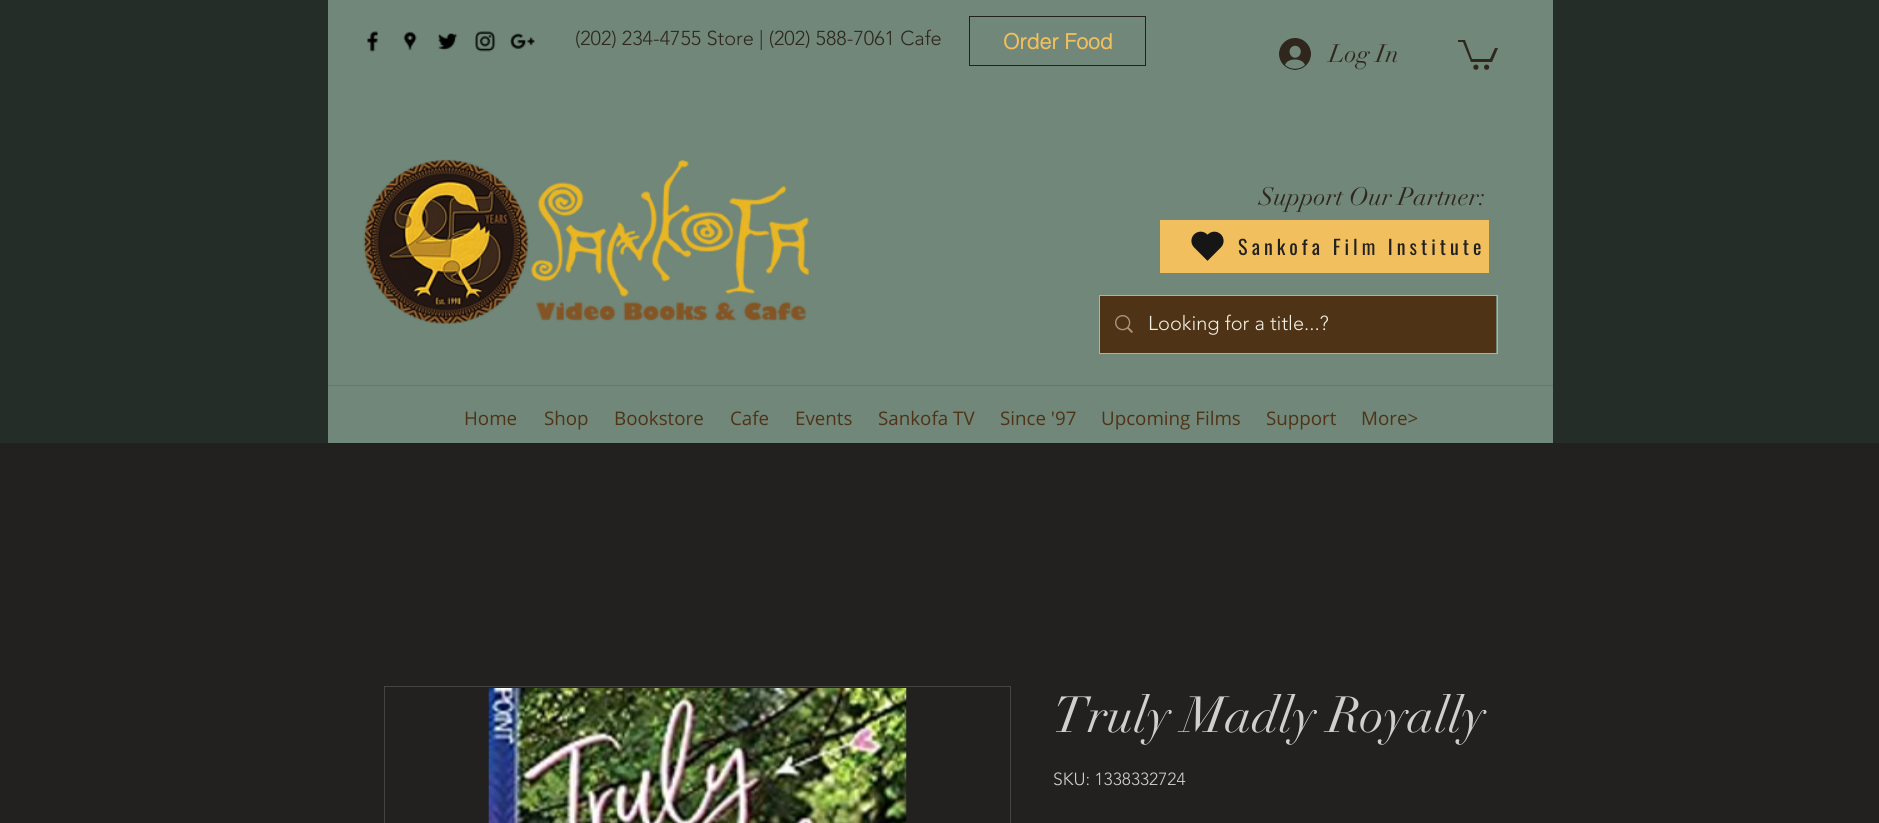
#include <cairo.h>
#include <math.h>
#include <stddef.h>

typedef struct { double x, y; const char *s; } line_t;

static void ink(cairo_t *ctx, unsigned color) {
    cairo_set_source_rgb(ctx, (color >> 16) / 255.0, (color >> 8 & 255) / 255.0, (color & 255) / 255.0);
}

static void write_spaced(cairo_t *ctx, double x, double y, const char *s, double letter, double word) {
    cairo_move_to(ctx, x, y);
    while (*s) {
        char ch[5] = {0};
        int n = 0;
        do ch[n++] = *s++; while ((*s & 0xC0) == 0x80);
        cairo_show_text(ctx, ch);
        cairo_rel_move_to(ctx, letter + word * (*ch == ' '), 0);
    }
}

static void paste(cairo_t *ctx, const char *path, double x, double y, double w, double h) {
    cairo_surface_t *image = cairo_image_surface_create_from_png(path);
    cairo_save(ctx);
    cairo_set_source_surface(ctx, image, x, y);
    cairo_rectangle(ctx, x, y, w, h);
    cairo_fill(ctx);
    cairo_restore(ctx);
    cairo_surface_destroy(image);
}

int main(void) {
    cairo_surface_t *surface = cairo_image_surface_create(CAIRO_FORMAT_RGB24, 1879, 823);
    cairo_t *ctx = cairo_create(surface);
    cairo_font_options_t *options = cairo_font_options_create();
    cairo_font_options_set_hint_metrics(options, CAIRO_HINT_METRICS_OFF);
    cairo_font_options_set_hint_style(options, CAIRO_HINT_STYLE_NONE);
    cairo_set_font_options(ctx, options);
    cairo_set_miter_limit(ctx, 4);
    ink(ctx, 0x252D28);
    cairo_paint(ctx);
    ink(ctx, 0x708779);
    cairo_rectangle(ctx, 328, 0, 1225, 443);
    cairo_fill(ctx);
    ink(ctx, 0x66786B);
    cairo_rectangle(ctx, 328, 385, 1225, 1);
    cairo_fill(ctx);
    paste(ctx, "media/1.png", 367, 31, 11, 21);
    paste(ctx, "media/2.png", 403, 31, 14, 20);
    paste(ctx, "media/3.png", 438, 33, 20, 17);
    paste(ctx, "media/4.png", 475, 31, 21, 21);
    paste(ctx, "media/5.png", 510, 33, 25, 16);
    cairo_select_font_face(ctx, "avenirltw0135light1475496 Light", CAIRO_FONT_SLANT_NORMAL, CAIRO_FONT_WEIGHT_NORMAL);
    cairo_set_font_size(ctx, 20);
    ink(ctx, 0x2F261E);
    cairo_move_to(ctx, 575, 45);
    cairo_show_text(ctx, "(202) 234-4755 Store | (202) 588-7061 Cafe");
    cairo_rectangle(ctx, 969.5, 16.5, 176, 49);
    ink(ctx, 0x222120);
    cairo_set_line_width(ctx, 1);
    cairo_stroke(ctx);
    cairo_select_font_face(ctx, "helvetica", CAIRO_FONT_SLANT_NORMAL, CAIRO_FONT_WEIGHT_BOLD);
    cairo_set_font_size(ctx, 21.25);
    ink(ctx, 0xF2BF5E);
    cairo_move_to(ctx, 1003, 49);
    cairo_show_text(ctx, "Order Food");
    paste(ctx, "media/6.png", 1279, 38, 32, 32);
    cairo_select_font_face(ctx, "didot", CAIRO_FONT_SLANT_NORMAL, CAIRO_FONT_WEIGHT_NORMAL);
    cairo_set_font_size(ctx, 25);
    ink(ctx, 0x2F261E);
    cairo_move_to(ctx, 1329, 62);
    cairo_show_text(ctx, "Log In");
    cairo_new_path(ctx);
    cairo_move_to(ctx, 1498, 48);
    cairo_line_to(ctx, 1492, 62);
    cairo_line_to(ctx, 1471, 62);
    cairo_line_to(ctx, 1463, 42);
    cairo_line_to(ctx, 1458, 42);
    cairo_line_to(ctx, 1458, 40);
    cairo_line_to(ctx, 1465, 40);
    cairo_line_to(ctx, 1472, 59);
    cairo_line_to(ctx, 1490, 59);
    cairo_line_to(ctx, 1495, 48);
    cairo_fill(ctx);
    cairo_arc(ctx, 1486.6, 67.2, 2.6, 0, 2 * M_PI);
    cairo_fill(ctx);
    cairo_arc(ctx, 1475.9, 67.2, 2.6, 0, 2 * M_PI);
    cairo_fill(ctx);
    paste(ctx, "media/7.png", 363, 159, 447, 165);
    cairo_move_to(ctx, 1259, 205);
    cairo_show_text(ctx, "Support Our Partner:");
    ink(ctx, 0xF2BF5E);
    cairo_rectangle(ctx, 1160, 220, 329, 53);
    cairo_fill(ctx);
    paste(ctx, "media/8.png", 1191, 231, 33, 30);
    cairo_select_font_face(ctx, "Oswald", CAIRO_FONT_SLANT_NORMAL, CAIRO_FONT_WEIGHT_NORMAL);
    cairo_set_font_size(ctx, 20);
    ink(ctx, 0x222120);
    write_spaced(ctx, 1238, 255, "Sankofa Film Institute", 4, 0);
    cairo_rectangle(ctx, 1099.5, 295.5, 398, 58);
    ink(ctx, 0xAAB2AB);
    cairo_stroke(ctx);
    ink(ctx, 0x4F3316);
    cairo_rectangle(ctx, 1100, 296, 396, 57);
    cairo_fill(ctx);
    paste(ctx, "media/9.png", 1115, 315, 18, 18);
    cairo_select_font_face(ctx, "avenirltw0135light1475496 Light", CAIRO_FONT_SLANT_NORMAL, CAIRO_FONT_WEIGHT_NORMAL);
    ink(ctx, 0xF2F0E1);
    cairo_move_to(ctx, 1148, 330);
    cairo_show_text(ctx, "Looking for a title...?");
    cairo_select_font_face(ctx, "Open Sans", CAIRO_FONT_SLANT_NORMAL, CAIRO_FONT_WEIGHT_NORMAL);
    cairo_set_font_size(ctx, 18.75);
    ink(ctx, 0x4F3316);
    {
        static const line_t items[] = {
            {464, 425, "Home"},
            {544, 425, "Shop"},
            {614, 425, "Bookstore"},
            {730, 425, "Cafe"},
            {795, 425, "Events"},
            {878, 425, "Sankofa TV"},
            {1000, 425, "Since '97"},
            {1101, 425, "Upcoming Films"},
            {1266, 425, "Support"},
            {1361, 425, "More>"},
        };
        for (size_t i = 0; i < sizeof items / sizeof *items; i++) {
            cairo_move_to(ctx, items[i].x, items[i].y);
            cairo_show_text(ctx, items[i].s);
        }
    }
    ink(ctx, 0x222120);
    cairo_rectangle(ctx, 0, 443, 1879, 380);
    cairo_fill(ctx);
    cairo_rectangle(ctx, 384.5, 686.5, 626, 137);
    ink(ctx, 0x454443);
    cairo_stroke(ctx);
    paste(ctx, "media/10.png", 488, 688, 419, 135);
    cairo_select_font_face(ctx, "didot", CAIRO_FONT_SLANT_NORMAL, CAIRO_FONT_WEIGHT_NORMAL);
    cairo_set_font_size(ctx, 50);
    ink(ctx, 0xD0CFCD);
    cairo_move_to(ctx, 1053, 732);
    cairo_show_text(ctx, "Truly Madly Royally");
    cairo_select_font_face(ctx, "avenirltw0135light1475496 Light", CAIRO_FONT_SLANT_NORMAL, CAIRO_FONT_WEIGHT_NORMAL);
    cairo_set_font_size(ctx, 17.5);
    cairo_move_to(ctx, 1053, 785);
    cairo_show_text(ctx, "SKU: 1338332724");
    cairo_surface_write_to_png(surface, "image.png");
    cairo_font_options_destroy(options);
    cairo_destroy(ctx);
    cairo_surface_destroy(surface);
    return 0;
}
